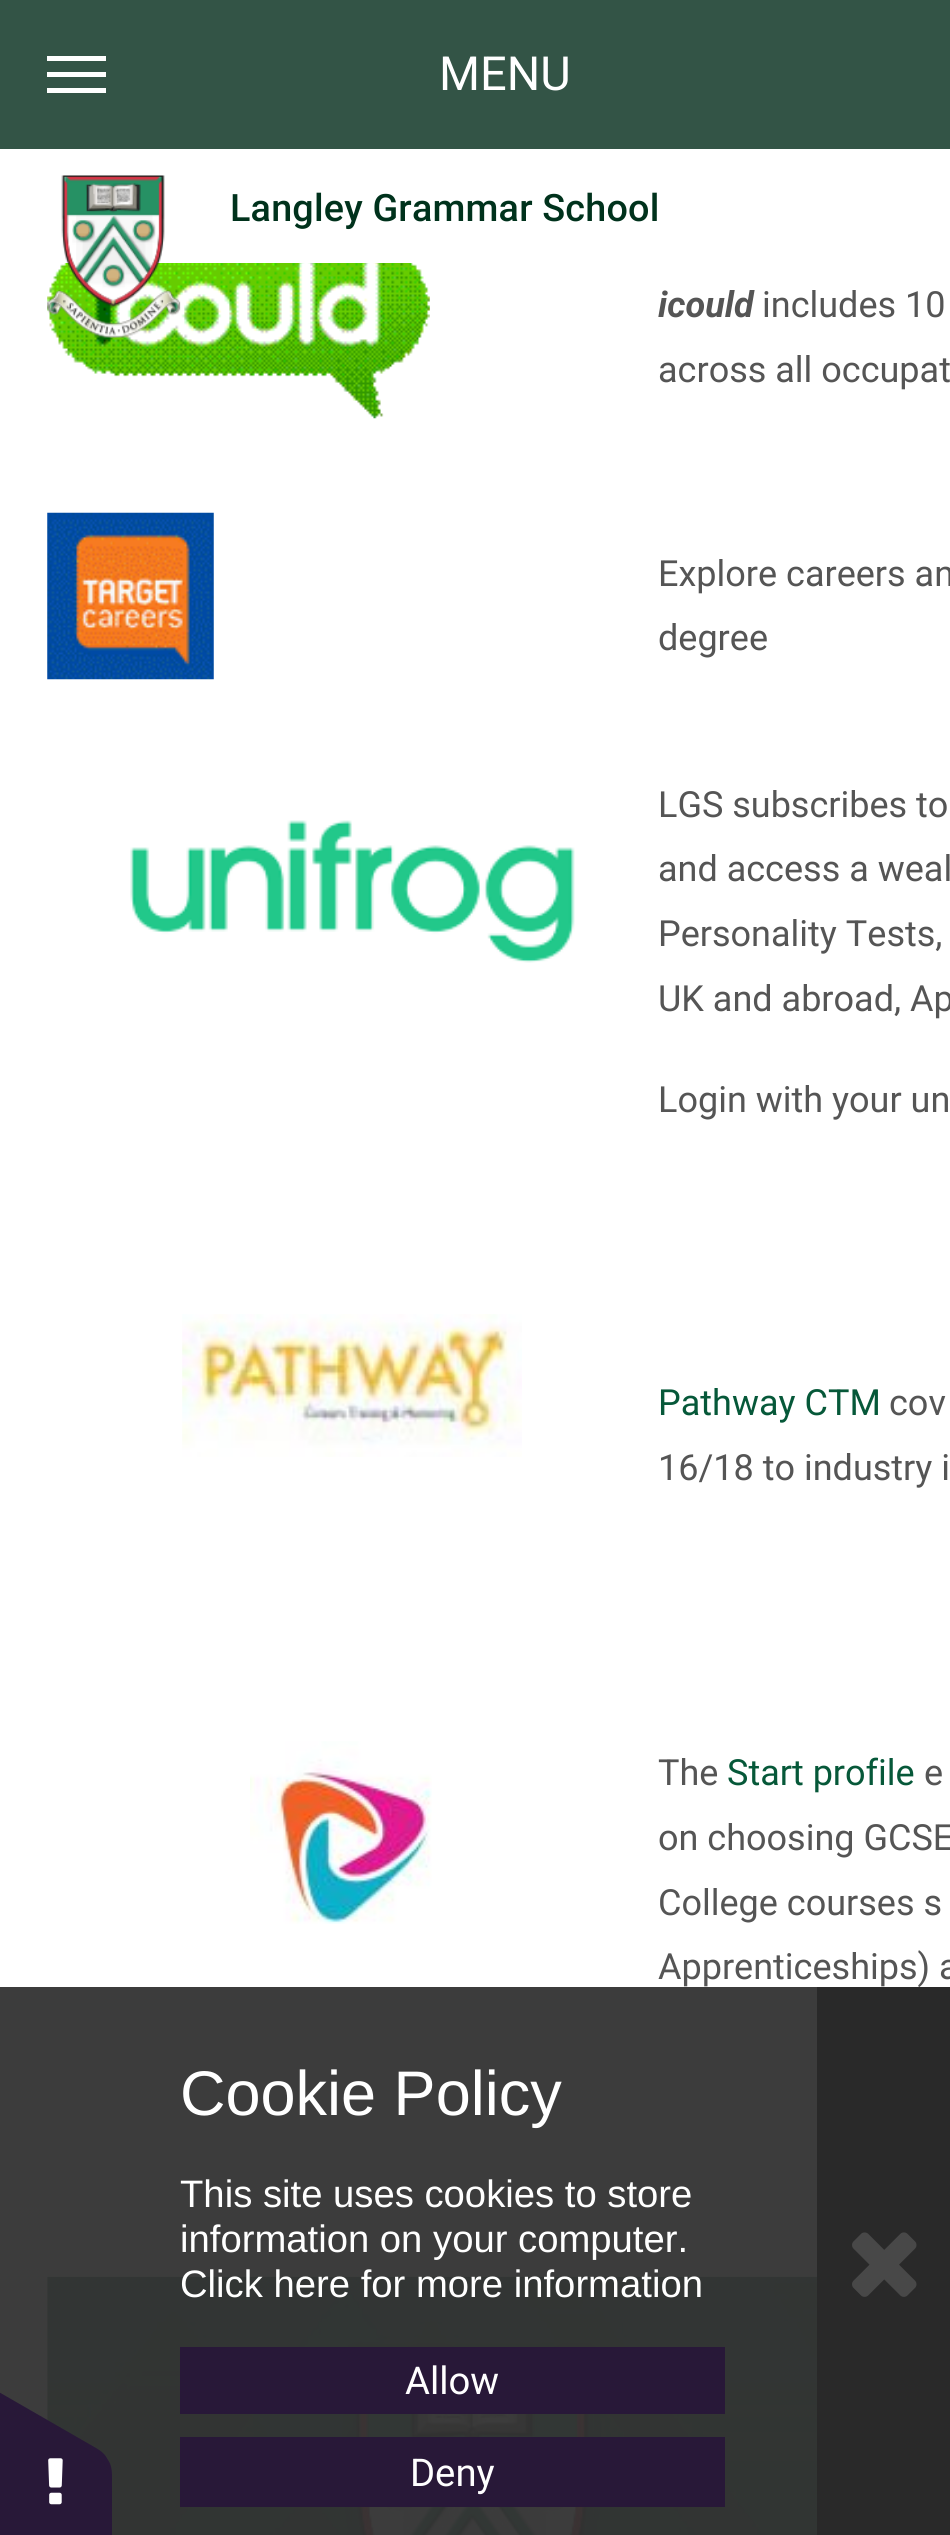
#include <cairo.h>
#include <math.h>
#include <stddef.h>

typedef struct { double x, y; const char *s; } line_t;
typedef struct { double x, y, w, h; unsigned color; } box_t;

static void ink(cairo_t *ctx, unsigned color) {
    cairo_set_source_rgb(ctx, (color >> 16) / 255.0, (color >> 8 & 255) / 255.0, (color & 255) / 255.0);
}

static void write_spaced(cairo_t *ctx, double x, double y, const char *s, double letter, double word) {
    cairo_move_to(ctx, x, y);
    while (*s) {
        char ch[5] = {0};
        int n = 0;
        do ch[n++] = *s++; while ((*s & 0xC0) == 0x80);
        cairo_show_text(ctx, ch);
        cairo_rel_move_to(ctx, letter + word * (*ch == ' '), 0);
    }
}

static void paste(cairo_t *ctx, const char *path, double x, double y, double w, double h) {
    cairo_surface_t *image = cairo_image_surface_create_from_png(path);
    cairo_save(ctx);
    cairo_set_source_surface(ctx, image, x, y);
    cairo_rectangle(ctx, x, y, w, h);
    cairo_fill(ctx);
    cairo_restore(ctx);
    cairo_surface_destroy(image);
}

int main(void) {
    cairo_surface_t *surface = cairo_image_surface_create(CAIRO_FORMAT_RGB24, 950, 2535);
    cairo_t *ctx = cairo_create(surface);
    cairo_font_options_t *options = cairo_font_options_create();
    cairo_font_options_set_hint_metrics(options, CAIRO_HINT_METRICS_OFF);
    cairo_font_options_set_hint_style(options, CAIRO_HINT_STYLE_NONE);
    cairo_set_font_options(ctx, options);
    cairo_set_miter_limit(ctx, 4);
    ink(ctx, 0xFFFFFF);
    cairo_paint(ctx);
    {
        static const box_t items[] = {
            {0, 0, 950, 149, 0x335446},
            {47, 56, 59, 5, 0xFFFFFF},
            {47, 72, 59, 5, 0xFFFFFF},
            {47, 88, 59, 5, 0xFFFFFF},
        };
        for (size_t i = 0; i < sizeof items / sizeof *items; i++) {
            ink(ctx, items[i].color);
            cairo_rectangle(ctx, items[i].x, items[i].y, items[i].w, items[i].h);
            cairo_fill(ctx);
        }
    }
    cairo_select_font_face(ctx, "Roboto", CAIRO_FONT_SLANT_NORMAL, CAIRO_FONT_WEIGHT_NORMAL);
    cairo_set_font_size(ctx, 47);
    cairo_move_to(ctx, 439, 90);
    cairo_show_text(ctx, "MENU");
    paste(ctx, "media/2.png", 47, 263, 383, 156);
    paste(ctx, "media/1.png", 47, 175, 134, 163);
    cairo_select_font_face(ctx, "Roboto Medium", CAIRO_FONT_SLANT_NORMAL, CAIRO_FONT_WEIGHT_NORMAL);
    cairo_set_font_size(ctx, 37.75);
    ink(ctx, 0x00321C);
    write_spaced(ctx, 230, 221, "Langley Grammar School", 0.2, 0);
    cairo_select_font_face(ctx, "Roboto", CAIRO_FONT_SLANT_ITALIC, CAIRO_FONT_WEIGHT_BOLD);
    cairo_set_font_size(ctx, 36);
    ink(ctx, 0x555555);
    cairo_move_to(ctx, 658, 317);
    cairo_show_text(ctx, "icould");
    cairo_select_font_face(ctx, "Roboto", CAIRO_FONT_SLANT_NORMAL, CAIRO_FONT_WEIGHT_NORMAL);
    cairo_move_to(ctx, 762, 317);
    cairo_show_text(ctx, "includes 10");
    cairo_move_to(ctx, 658, 382);
    cairo_show_text(ctx, "across all occupat");
    paste(ctx, "media/3.png", 47, 512, 167, 168);
    cairo_move_to(ctx, 658, 586);
    cairo_show_text(ctx, "Explore careers an");
    cairo_move_to(ctx, 658, 650);
    cairo_show_text(ctx, "degree");
    paste(ctx, "media/4.png", 130, 820, 445, 143);
    {
        static const line_t items[] = {
            {658, 817, "LGS subscribes to"},
            {658, 881, "and access a weal"},
            {658, 946, "Personality Tests,"},
            {658, 1011, "UK and abroad, Ap"},
            {658, 1112, "Login with your un"},
        };
        for (size_t i = 0; i < sizeof items / sizeof *items; i++) {
            cairo_move_to(ctx, items[i].x, items[i].y);
            cairo_show_text(ctx, items[i].s);
        }
    }
    paste(ctx, "media/5.png", 182, 1314, 340, 143);
    ink(ctx, 0x065839);
    cairo_move_to(ctx, 658, 1415);
    cairo_show_text(ctx, "Pathway CTM");
    ink(ctx, 0x555555);
    cairo_move_to(ctx, 889, 1415);
    cairo_show_text(ctx, "cov");
    cairo_move_to(ctx, 658, 1480);
    cairo_show_text(ctx, "16/18 to industry i");
    paste(ctx, "media/6.png", 250, 1741, 182, 183);
    cairo_move_to(ctx, 658, 1785);
    cairo_show_text(ctx, "The");
    ink(ctx, 0x065839);
    cairo_move_to(ctx, 727, 1785);
    cairo_show_text(ctx, "Start profile");
    ink(ctx, 0x555555);
    {
        static const line_t items[] = {
            {924, 1785, "e"},
            {658, 1850, "on choosing GCSE"},
            {658, 1915, "College courses s"},
            {658, 1979, "Apprenticeships) a"},
        };
        for (size_t i = 0; i < sizeof items / sizeof *items; i++) {
            cairo_move_to(ctx, items[i].x, items[i].y);
            cairo_show_text(ctx, items[i].s);
        }
    }
    paste(ctx, "media/7.png", 47, 2276, 770, 259);
    cairo_set_source_rgba(ctx, 0.2, 0.2, 0.2, 0.95);
    cairo_rectangle(ctx, 0, 1987, 817, 548);
    cairo_fill(ctx);
    ink(ctx, 0x281838);
    cairo_new_path(ctx);
    cairo_move_to(ctx, 112, 2475);
    cairo_line_to(ctx, 112, 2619);
    cairo_curve_to(ctx, 112, 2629, 108, 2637, 103, 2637);
    cairo_line_to(ctx, -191, 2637);
    cairo_curve_to(ctx, -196, 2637, -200, 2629, -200, 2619);
    cairo_line_to(ctx, -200, 2475);
    cairo_curve_to(ctx, -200, 2465, -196, 2457, -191, 2457);
    cairo_line_to(ctx, 103, 2457);
    cairo_curve_to(ctx, 108, 2457, 112, 2465, 112, 2475);
    cairo_close_path(ctx);
    cairo_fill(ctx);
    cairo_new_path(ctx);
    cairo_move_to(ctx, -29, 2376);
    cairo_line_to(ctx, 96, 2448);
    cairo_curve_to(ctx, 105, 2453, 110, 2460, 107, 2465);
    cairo_line_to(ctx, -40, 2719);
    cairo_curve_to(ctx, -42, 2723, -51, 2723, -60, 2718);
    cairo_line_to(ctx, -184, 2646);
    cairo_curve_to(ctx, -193, 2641, -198, 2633, -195, 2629);
    cairo_line_to(ctx, -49, 2375);
    cairo_curve_to(ctx, -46, 2370, -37, 2371, -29, 2376);
    cairo_close_path(ctx);
    cairo_fill(ctx);
    paste(ctx, "media/8.png", 48, 2458, 15, 47);
    cairo_select_font_face(ctx, "Liberation Sans", CAIRO_FONT_SLANT_NORMAL, CAIRO_FONT_WEIGHT_NORMAL);
    cairo_set_font_size(ctx, 63);
    ink(ctx, 0xFFFFFF);
    cairo_move_to(ctx, 180, 2115);
    cairo_show_text(ctx, "Cookie Policy");
    cairo_set_font_size(ctx, 38.25);
    {
        static const line_t items[] = {
            {180, 2207, "This site uses cookies to store"},
            {180, 2252, "information on your computer."},
            {180, 2297, "Click here for more information"},
        };
        for (size_t i = 0; i < sizeof items / sizeof *items; i++) {
            cairo_move_to(ctx, items[i].x, items[i].y);
            cairo_show_text(ctx, items[i].s);
        }
    }
    ink(ctx, 0x281838);
    cairo_rectangle(ctx, 180, 2347, 545, 67);
    cairo_fill(ctx);
    cairo_select_font_face(ctx, "Roboto", CAIRO_FONT_SLANT_NORMAL, CAIRO_FONT_WEIGHT_NORMAL);
    ink(ctx, 0xFFFFFF);
    cairo_move_to(ctx, 405, 2394);
    cairo_show_text(ctx, "Allow");
    ink(ctx, 0x281838);
    cairo_rectangle(ctx, 180, 2437, 545, 70);
    cairo_fill(ctx);
    ink(ctx, 0xFFFFFF);
    cairo_move_to(ctx, 410, 2486);
    cairo_show_text(ctx, "Deny");
    ink(ctx, 0x292929);
    cairo_rectangle(ctx, 817, 1987, 133, 548);
    cairo_fill(ctx);
    paste(ctx, "media/9.png", 852, 2232, 65, 65);
    cairo_surface_write_to_png(surface, "image.png");
    cairo_font_options_destroy(options);
    cairo_destroy(ctx);
    cairo_surface_destroy(surface);
    return 0;
}
